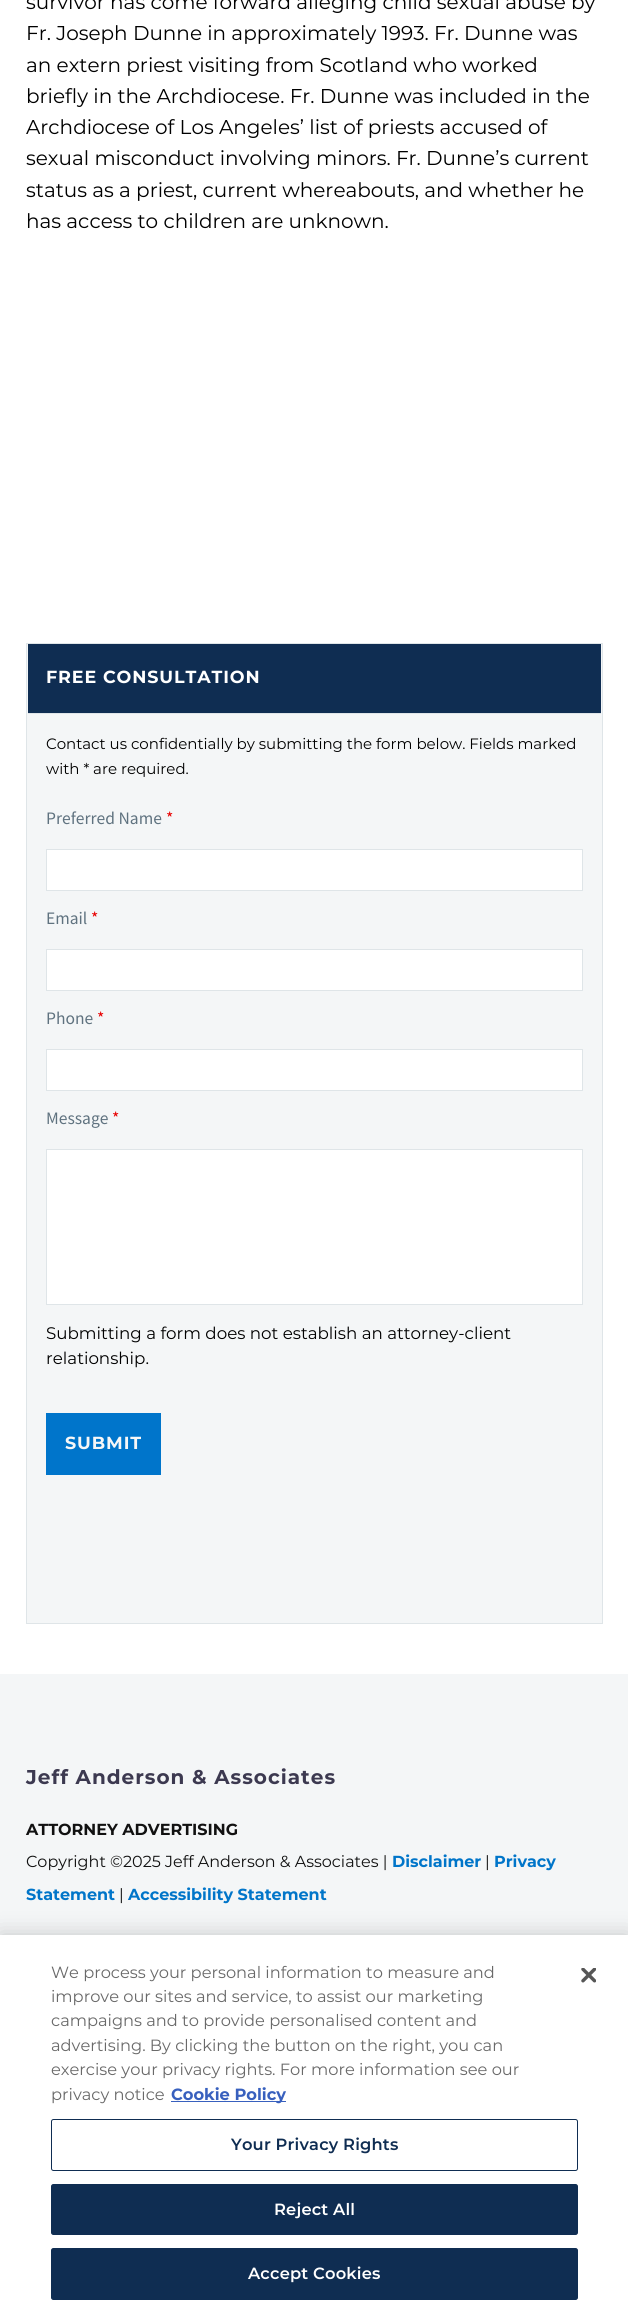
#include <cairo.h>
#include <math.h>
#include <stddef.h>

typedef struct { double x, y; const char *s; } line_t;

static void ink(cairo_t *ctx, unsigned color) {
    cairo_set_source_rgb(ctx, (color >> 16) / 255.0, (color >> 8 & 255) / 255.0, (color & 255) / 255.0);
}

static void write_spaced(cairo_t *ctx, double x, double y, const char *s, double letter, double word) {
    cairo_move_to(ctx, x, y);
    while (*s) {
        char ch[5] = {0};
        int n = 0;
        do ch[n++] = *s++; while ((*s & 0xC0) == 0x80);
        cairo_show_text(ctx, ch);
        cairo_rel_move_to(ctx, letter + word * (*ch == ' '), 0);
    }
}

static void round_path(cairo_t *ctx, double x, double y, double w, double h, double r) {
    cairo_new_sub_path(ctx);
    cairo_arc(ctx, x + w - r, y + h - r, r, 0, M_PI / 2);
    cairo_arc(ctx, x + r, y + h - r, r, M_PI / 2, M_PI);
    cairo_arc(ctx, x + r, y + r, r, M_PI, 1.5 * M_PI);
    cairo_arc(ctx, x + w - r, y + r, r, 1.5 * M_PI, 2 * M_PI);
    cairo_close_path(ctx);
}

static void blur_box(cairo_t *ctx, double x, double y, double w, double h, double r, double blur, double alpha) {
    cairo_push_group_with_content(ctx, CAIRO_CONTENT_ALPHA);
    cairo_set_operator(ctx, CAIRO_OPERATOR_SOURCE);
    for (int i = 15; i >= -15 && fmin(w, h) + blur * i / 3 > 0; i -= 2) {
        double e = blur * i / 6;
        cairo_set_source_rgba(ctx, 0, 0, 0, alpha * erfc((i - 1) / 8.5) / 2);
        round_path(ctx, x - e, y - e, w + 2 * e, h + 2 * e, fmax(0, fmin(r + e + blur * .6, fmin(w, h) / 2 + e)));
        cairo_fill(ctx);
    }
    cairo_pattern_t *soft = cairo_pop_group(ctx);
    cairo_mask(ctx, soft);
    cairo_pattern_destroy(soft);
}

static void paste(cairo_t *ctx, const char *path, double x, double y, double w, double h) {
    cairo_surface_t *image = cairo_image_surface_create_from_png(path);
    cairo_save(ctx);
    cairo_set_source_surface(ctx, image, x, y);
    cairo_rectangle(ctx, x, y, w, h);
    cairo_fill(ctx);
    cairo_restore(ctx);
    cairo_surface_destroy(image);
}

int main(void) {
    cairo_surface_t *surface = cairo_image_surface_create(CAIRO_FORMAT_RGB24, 628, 2312);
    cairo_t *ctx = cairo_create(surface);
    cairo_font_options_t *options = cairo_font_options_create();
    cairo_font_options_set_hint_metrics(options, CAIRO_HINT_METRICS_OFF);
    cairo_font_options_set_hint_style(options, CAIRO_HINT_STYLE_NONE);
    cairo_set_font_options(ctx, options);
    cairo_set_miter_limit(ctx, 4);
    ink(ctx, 0xF4F6F7);
    cairo_paint(ctx);
    ink(ctx, 0xFFFFFF);
    cairo_rectangle(ctx, 0, 0, 628, 1674);
    cairo_fill(ctx);
    cairo_select_font_face(ctx, "Montserrat", CAIRO_FONT_SLANT_NORMAL, CAIRO_FONT_WEIGHT_NORMAL);
    cairo_set_font_size(ctx, 20);
    ink(ctx, 0x000000);
    {
        static const line_t items[] = {
            {26, 9, "survivor has come forward alleging child sexual abuse by"},
            {26, 40, "Fr. Joseph Dunne in approximately 1993. Fr. Dunne was"},
            {26, 72, "an extern priest visiting from Scotland who worked"},
            {26, 103, "briefly in the Archdiocese. Fr. Dunne was included in the"},
            {26, 134, "Archdiocese of Los Angeles’ list of priests accused of"},
            {26, 165, "sexual misconduct involving minors. Fr. Dunne’s current"},
            {26, 197, "status as a priest, current whereabouts, and whether he"},
            {26, 228, "has access to children are unknown."},
        };
        for (size_t i = 0; i < sizeof items / sizeof *items; i++) {
            cairo_move_to(ctx, items[i].x, items[i].y);
            cairo_show_text(ctx, items[i].s);
        }
    }
    ink(ctx, 0xF4F6F7);
    cairo_rectangle(ctx, 26.5, 643.5, 576, 980);
    cairo_fill_preserve(ctx);
    ink(ctx, 0xDFE5E8);
    cairo_set_line_width(ctx, 1);
    cairo_stroke(ctx);
    ink(ctx, 0x0F2D52);
    cairo_rectangle(ctx, 28, 644, 573, 69);
    cairo_fill(ctx);
    ink(ctx, 0xDFE5E8);
    cairo_rectangle(ctx, 28, 713, 573, 1);
    cairo_fill(ctx);
    cairo_select_font_face(ctx, "Montserrat", CAIRO_FONT_SLANT_NORMAL, CAIRO_FONT_WEIGHT_BOLD);
    cairo_set_font_size(ctx, 17.5);
    ink(ctx, 0xFFFFFF);
    write_spaced(ctx, 46, 683, "FREE CONSULTATION", 0.9, 0);
    cairo_select_font_face(ctx, "Montserrat", CAIRO_FONT_SLANT_NORMAL, CAIRO_FONT_WEIGHT_NORMAL);
    cairo_set_font_size(ctx, 15);
    ink(ctx, 0x000000);
    cairo_move_to(ctx, 46, 749);
    cairo_show_text(ctx, "Contact us confidentially by submitting the form below. Fields marked");
    cairo_move_to(ctx, 46, 774);
    cairo_show_text(ctx, "with * are required.");
    cairo_select_font_face(ctx, "Source Sans Pro", CAIRO_FONT_SLANT_NORMAL, CAIRO_FONT_WEIGHT_NORMAL);
    cairo_set_font_size(ctx, 17.5);
    ink(ctx, 0x5F727F);
    cairo_move_to(ctx, 46, 824);
    cairo_show_text(ctx, "Preferred Name");
    ink(ctx, 0xE80000);
    cairo_move_to(ctx, 166, 824);
    cairo_show_text(ctx, "*");
    ink(ctx, 0xFFFFFF);
    cairo_rectangle(ctx, 46.5, 849.5, 536, 41);
    cairo_fill_preserve(ctx);
    ink(ctx, 0xDFE5E8);
    cairo_stroke(ctx);
    ink(ctx, 0x5F727F);
    cairo_move_to(ctx, 46, 924);
    cairo_show_text(ctx, "Email");
    ink(ctx, 0xE80000);
    cairo_move_to(ctx, 91, 924);
    cairo_show_text(ctx, "*");
    ink(ctx, 0xFFFFFF);
    cairo_rectangle(ctx, 46.5, 949.5, 536, 41);
    cairo_fill_preserve(ctx);
    ink(ctx, 0xDFE5E8);
    cairo_stroke(ctx);
    ink(ctx, 0x5F727F);
    cairo_move_to(ctx, 46, 1024);
    cairo_show_text(ctx, "Phone");
    ink(ctx, 0xE80000);
    cairo_move_to(ctx, 97, 1024);
    cairo_show_text(ctx, "*");
    ink(ctx, 0xFFFFFF);
    cairo_rectangle(ctx, 46.5, 1049.5, 536, 41);
    cairo_fill_preserve(ctx);
    ink(ctx, 0xDFE5E8);
    cairo_stroke(ctx);
    ink(ctx, 0x5F727F);
    cairo_move_to(ctx, 46, 1124);
    cairo_show_text(ctx, "Message");
    ink(ctx, 0xE80000);
    cairo_move_to(ctx, 112, 1124);
    cairo_show_text(ctx, "*");
    ink(ctx, 0xFFFFFF);
    cairo_rectangle(ctx, 46.5, 1149.5, 536, 155);
    cairo_fill_preserve(ctx);
    ink(ctx, 0xDFE5E8);
    cairo_stroke(ctx);
    cairo_select_font_face(ctx, "Montserrat", CAIRO_FONT_SLANT_NORMAL, CAIRO_FONT_WEIGHT_NORMAL);
    cairo_set_font_size(ctx, 16.7);
    ink(ctx, 0x000000);
    cairo_move_to(ctx, 46, 1339);
    cairo_show_text(ctx, "Submitting a form does not establish an attorney-client");
    cairo_move_to(ctx, 46, 1364);
    cairo_show_text(ctx, "relationship.");
    ink(ctx, 0x0075CB);
    cairo_rectangle(ctx, 46, 1413, 115, 62);
    cairo_fill(ctx);
    cairo_select_font_face(ctx, "Montserrat", CAIRO_FONT_SLANT_NORMAL, CAIRO_FONT_WEIGHT_BOLD);
    cairo_set_font_size(ctx, 17.5);
    ink(ctx, 0xF7F7F7);
    write_spaced(ctx, 65, 1449, "SUBMIT", 0.9, 0);
    cairo_set_font_size(ctx, 20);
    ink(ctx, 0x3C3950);
    write_spaced(ctx, 26, 1784, "Jeff Anderson & Associates", 1, 0);
    cairo_set_font_size(ctx, 16);
    ink(ctx, 0x111111);
    cairo_move_to(ctx, 26, 1835);
    cairo_show_text(ctx, "ATTORNEY ADVERTISING");
    cairo_select_font_face(ctx, "Montserrat", CAIRO_FONT_SLANT_NORMAL, CAIRO_FONT_WEIGHT_NORMAL);
    cairo_move_to(ctx, 26, 1867);
    cairo_show_text(ctx, "Copyright ©2025 Jeff Anderson & Associates |");
    cairo_select_font_face(ctx, "Montserrat", CAIRO_FONT_SLANT_NORMAL, CAIRO_FONT_WEIGHT_BOLD);
    ink(ctx, 0x0075C9);
    cairo_move_to(ctx, 392, 1867);
    cairo_show_text(ctx, "Disclaimer");
    cairo_select_font_face(ctx, "Montserrat", CAIRO_FONT_SLANT_NORMAL, CAIRO_FONT_WEIGHT_NORMAL);
    ink(ctx, 0x111111);
    cairo_move_to(ctx, 485, 1867);
    cairo_show_text(ctx, "|");
    cairo_select_font_face(ctx, "Montserrat", CAIRO_FONT_SLANT_NORMAL, CAIRO_FONT_WEIGHT_BOLD);
    ink(ctx, 0x0075C9);
    cairo_move_to(ctx, 494, 1867);
    cairo_show_text(ctx, "Privacy");
    cairo_move_to(ctx, 26, 1900);
    cairo_show_text(ctx, "Statement");
    cairo_select_font_face(ctx, "Montserrat", CAIRO_FONT_SLANT_NORMAL, CAIRO_FONT_WEIGHT_NORMAL);
    ink(ctx, 0x111111);
    cairo_move_to(ctx, 119, 1900);
    cairo_show_text(ctx, "|");
    cairo_select_font_face(ctx, "Montserrat", CAIRO_FONT_SLANT_NORMAL, CAIRO_FONT_WEIGHT_BOLD);
    ink(ctx, 0x0075C9);
    cairo_move_to(ctx, 128, 1900);
    cairo_show_text(ctx, "Accessibility Statement");
    ink(ctx, 0x000000);
    blur_box(ctx, 0, 1935, 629, 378, 0, 11, 0.2);
    ink(ctx, 0xFFFFFF);
    cairo_rectangle(ctx, 0, 1935, 628, 377);
    cairo_fill(ctx);
    cairo_select_font_face(ctx, "Montserrat", CAIRO_FONT_SLANT_NORMAL, CAIRO_FONT_WEIGHT_NORMAL);
    cairo_set_font_size(ctx, 16.25);
    ink(ctx, 0x696969);
    {
        static const line_t items[] = {
            {51, 1978, "We process your personal information to measure and"},
            {51, 2002, "improve our sites and service, to assist our marketing"},
            {51, 2026, "campaigns and to provide personalised content and"},
            {51, 2051, "advertising. By clicking the button on the right, you can"},
            {51, 2075, "exercise your privacy rights. For more information see our"},
            {51, 2100, "privacy notice"},
        };
        for (size_t i = 0; i < sizeof items / sizeof *items; i++) {
            cairo_move_to(ctx, items[i].x, items[i].y);
            cairo_show_text(ctx, items[i].s);
        }
    }
    ink(ctx, 0x3860BE);
    cairo_rectangle(ctx, 171, 2101, 115, 1);
    cairo_fill(ctx);
    cairo_select_font_face(ctx, "Montserrat", CAIRO_FONT_SLANT_NORMAL, CAIRO_FONT_WEIGHT_BOLD);
    cairo_move_to(ctx, 171, 2100);
    cairo_show_text(ctx, "Cookie Policy");
    round_path(ctx, 51.5, 2119.5, 526, 51, 2);
    ink(ctx, 0x0F2D52);
    cairo_stroke(ctx);
    cairo_select_font_face(ctx, "Montserrat SemiBold", CAIRO_FONT_SLANT_NORMAL, CAIRO_FONT_WEIGHT_NORMAL);
    write_spaced(ctx, 231, 2150, "Your Privacy Rights", 0.2, 0);
    round_path(ctx, 51.5, 2184.5, 526, 50, 2);
    cairo_fill_preserve(ctx);
    cairo_stroke(ctx);
    ink(ctx, 0xFFFFFF);
    write_spaced(ctx, 274, 2215, "Reject All", 0.2, 0);
    ink(ctx, 0x0F2D52);
    round_path(ctx, 51.5, 2248.5, 526, 51, 2);
    cairo_fill_preserve(ctx);
    cairo_stroke(ctx);
    ink(ctx, 0xFFFFFF);
    write_spaced(ctx, 248, 2279, "Accept Cookies", 0.2, 0);
    paste(ctx, "media/1.png", 581, 1968, 15, 15);
    cairo_surface_write_to_png(surface, "image.png");
    cairo_font_options_destroy(options);
    cairo_destroy(ctx);
    cairo_surface_destroy(surface);
    return 0;
}
